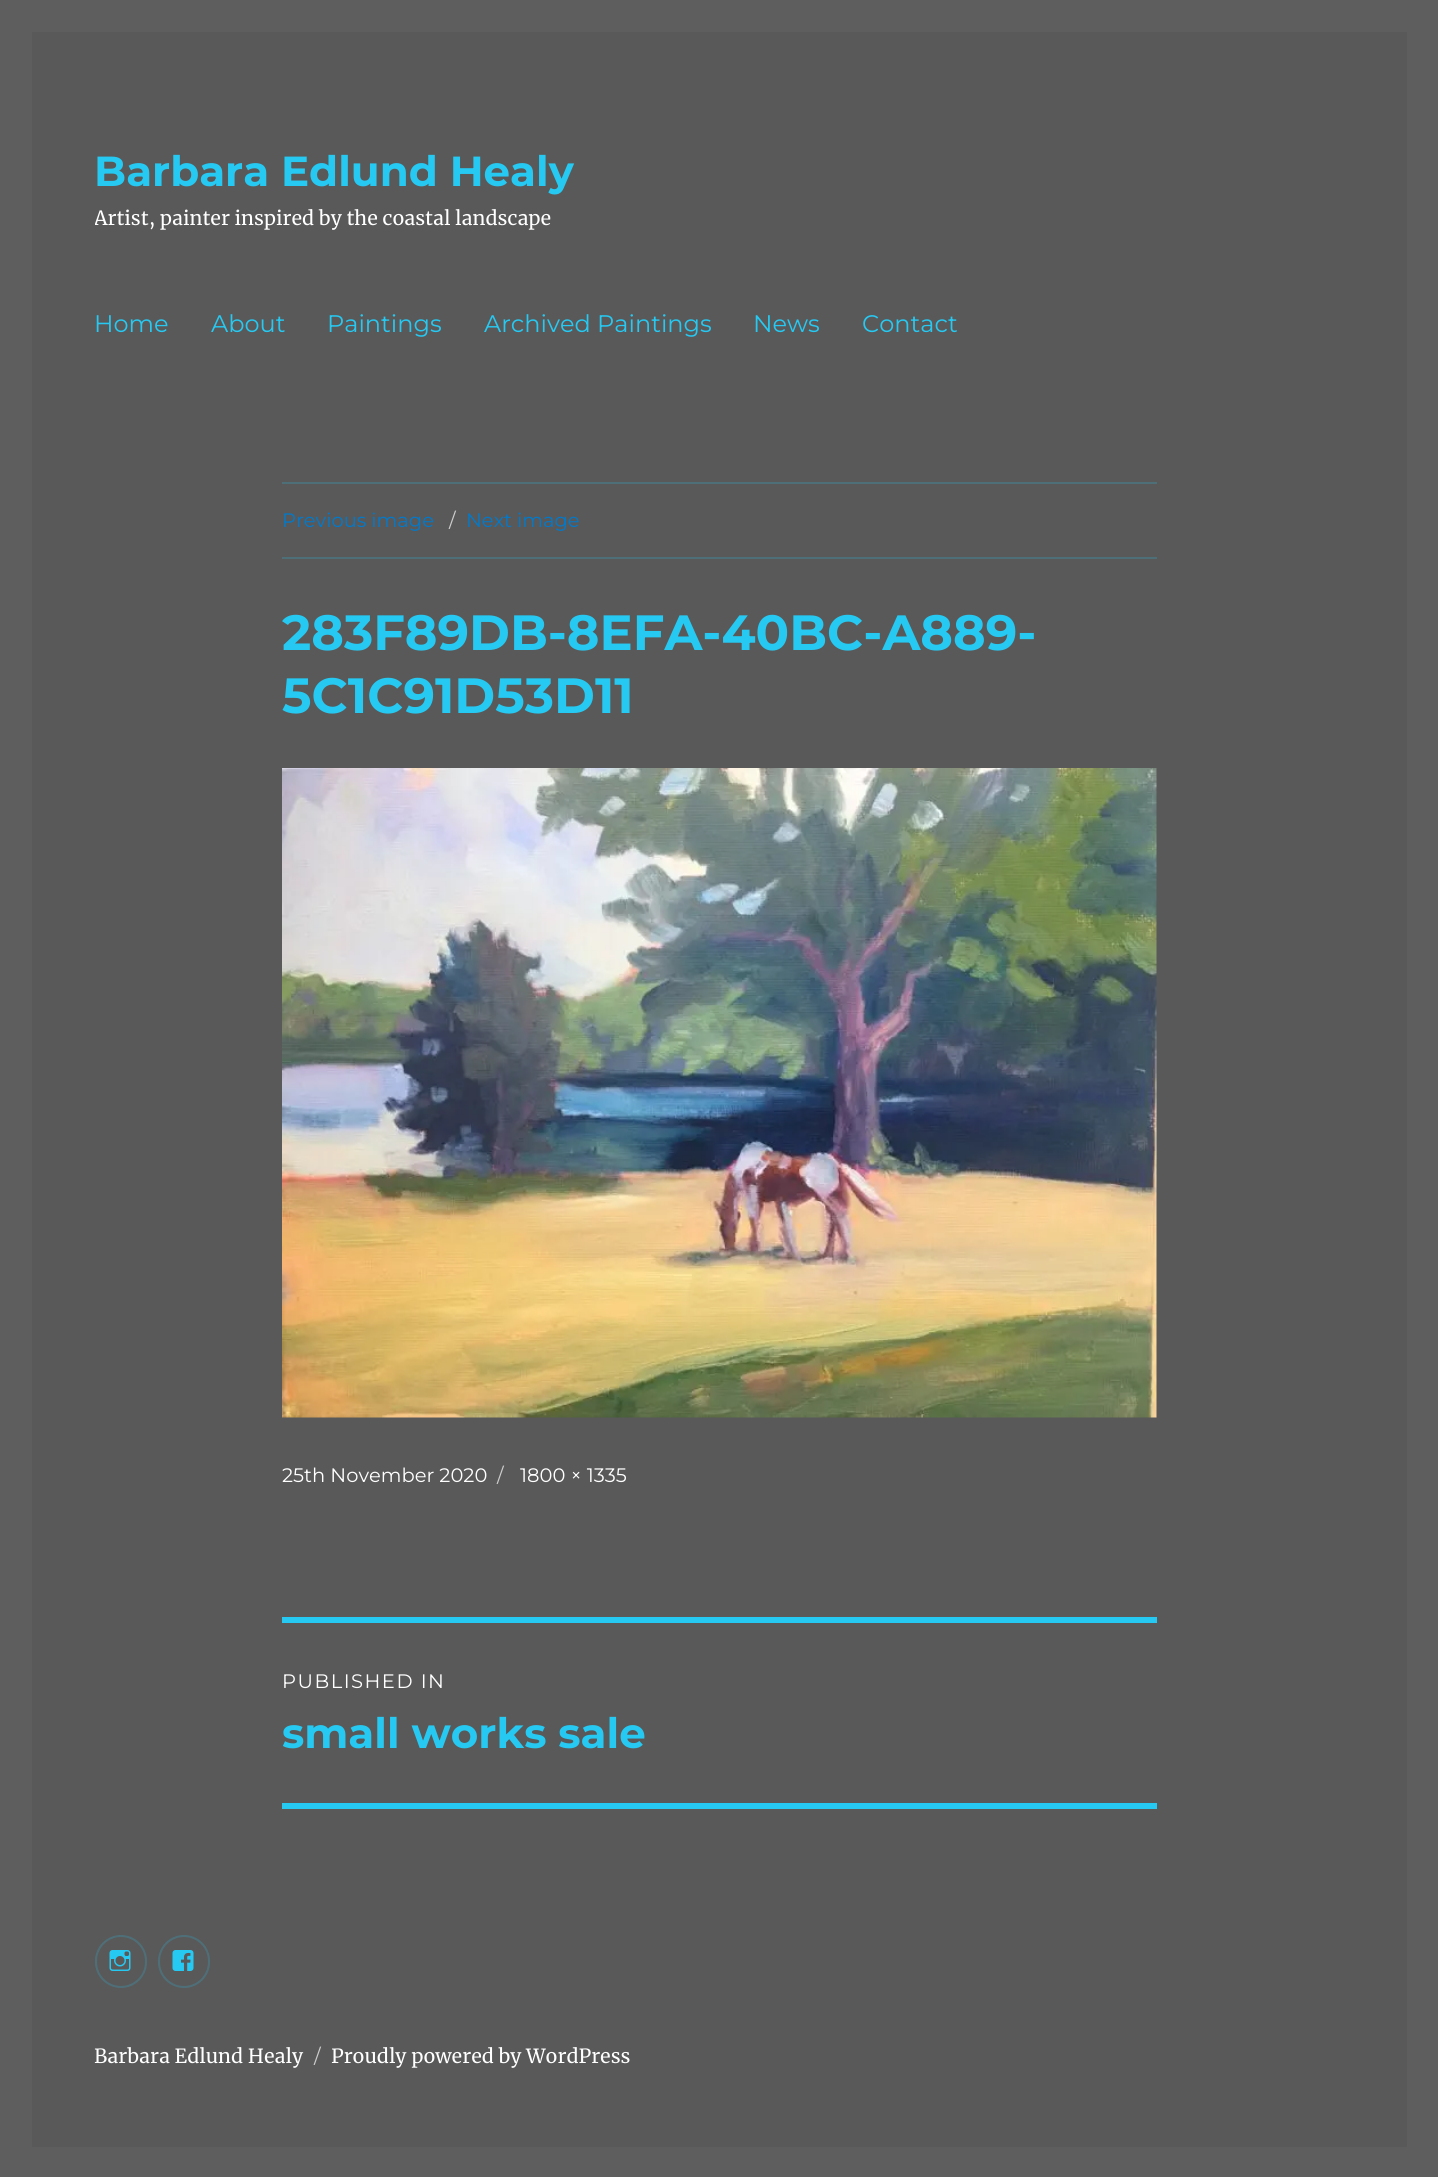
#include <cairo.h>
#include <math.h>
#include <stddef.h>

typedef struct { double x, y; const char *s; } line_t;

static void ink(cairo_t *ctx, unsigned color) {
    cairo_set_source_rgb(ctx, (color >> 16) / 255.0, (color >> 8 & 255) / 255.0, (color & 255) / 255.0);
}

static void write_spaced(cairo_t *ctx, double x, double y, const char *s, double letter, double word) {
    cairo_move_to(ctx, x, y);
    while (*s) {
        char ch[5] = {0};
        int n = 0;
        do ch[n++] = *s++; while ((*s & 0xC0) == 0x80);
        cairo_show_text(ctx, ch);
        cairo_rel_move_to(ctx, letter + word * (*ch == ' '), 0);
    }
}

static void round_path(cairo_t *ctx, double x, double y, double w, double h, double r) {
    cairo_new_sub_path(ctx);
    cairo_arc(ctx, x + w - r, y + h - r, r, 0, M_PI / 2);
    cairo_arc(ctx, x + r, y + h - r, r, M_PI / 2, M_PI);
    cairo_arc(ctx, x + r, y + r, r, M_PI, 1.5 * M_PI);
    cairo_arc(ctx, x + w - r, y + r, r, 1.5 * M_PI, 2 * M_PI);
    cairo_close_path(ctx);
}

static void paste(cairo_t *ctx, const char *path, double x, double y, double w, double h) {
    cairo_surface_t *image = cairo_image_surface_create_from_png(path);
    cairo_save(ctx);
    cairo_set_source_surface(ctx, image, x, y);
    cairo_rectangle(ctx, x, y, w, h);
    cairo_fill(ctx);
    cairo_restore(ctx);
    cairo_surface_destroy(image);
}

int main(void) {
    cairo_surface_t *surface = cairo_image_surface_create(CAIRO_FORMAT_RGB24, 1438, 2177);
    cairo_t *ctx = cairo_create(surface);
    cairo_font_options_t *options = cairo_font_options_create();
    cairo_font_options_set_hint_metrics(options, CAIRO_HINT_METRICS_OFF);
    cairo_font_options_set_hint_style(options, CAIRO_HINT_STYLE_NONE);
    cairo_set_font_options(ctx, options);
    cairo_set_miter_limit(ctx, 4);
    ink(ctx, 0x5E5E5E);
    cairo_paint(ctx);
    ink(ctx, 0x595959);
    cairo_rectangle(ctx, 32, 32, 1375, 2115);
    cairo_fill(ctx);
    cairo_select_font_face(ctx, "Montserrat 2 Thin", CAIRO_FONT_SLANT_NORMAL, CAIRO_FONT_WEIGHT_NORMAL);
    cairo_set_font_size(ctx, 42);
    ink(ctx, 0x26C9F2);
    cairo_move_to(ctx, 94, 186);
    cairo_show_text(ctx, "Barbara Edlund Healy");
    cairo_save(ctx);
    cairo_rectangle(ctx, 95, 146, 480, 84);
    cairo_clip(ctx);
    cairo_select_font_face(ctx, "Merriweather", CAIRO_FONT_SLANT_NORMAL, CAIRO_FONT_WEIGHT_NORMAL);
    cairo_set_font_size(ctx, 19.5);
    ink(ctx, 0xFFFFFF);
    cairo_move_to(ctx, 94, 225);
    cairo_show_text(ctx, "Artist, painter inspired by the coastal landscape");
    cairo_restore(ctx);
    cairo_select_font_face(ctx, "Montserrat Thin", CAIRO_FONT_SLANT_NORMAL, CAIRO_FONT_WEIGHT_NORMAL);
    cairo_set_font_size(ctx, 24);
    {
        static const line_t items[] = {
            {94, 332, "Home"},
            {211, 332, "About"},
            {327, 332, "Paintings"},
            {484, 332, "Archived Paintings"},
            {753, 332, "News"},
            {862, 332, "Contact"},
        };
        for (size_t i = 0; i < sizeof items / sizeof *items; i++) {
            cairo_move_to(ctx, items[i].x, items[i].y);
            cairo_show_text(ctx, items[i].s);
        }
    }
    ink(ctx, 0x4F6F78);
    cairo_rectangle(ctx, 282, 482, 875, 2);
    cairo_fill(ctx);
    cairo_rectangle(ctx, 282, 557, 875, 2);
    cairo_fill(ctx);
    cairo_set_font_size(ctx, 19.5);
    ink(ctx, 0x007ACC);
    cairo_move_to(ctx, 282, 527);
    cairo_show_text(ctx, "Previous image");
    ink(ctx, 0xCDCDCD);
    cairo_move_to(ctx, 449, 527);
    cairo_show_text(ctx, "/");
    ink(ctx, 0x007ACC);
    cairo_move_to(ctx, 466, 527);
    cairo_show_text(ctx, "Next image");
    cairo_select_font_face(ctx, "Montserrat 2 Thin", CAIRO_FONT_SLANT_NORMAL, CAIRO_FONT_WEIGHT_NORMAL);
    cairo_set_font_size(ctx, 49.5);
    ink(ctx, 0x26C9F2);
    cairo_move_to(ctx, 282, 650);
    cairo_show_text(ctx, "283F89DB-8EFA-40BC-A889-");
    cairo_move_to(ctx, 282, 713);
    cairo_show_text(ctx, "5C1C91D53D11");
    paste(ctx, "media/1.png", 282, 768, 875, 650);
    cairo_select_font_face(ctx, "Montserrat Thin", CAIRO_FONT_SLANT_NORMAL, CAIRO_FONT_WEIGHT_NORMAL);
    cairo_set_font_size(ctx, 19.5);
    ink(ctx, 0xFFFFFF);
    cairo_move_to(ctx, 282, 1482);
    cairo_show_text(ctx, "25th November 2020");
    ink(ctx, 0xCDCDCD);
    cairo_move_to(ctx, 497, 1482);
    cairo_show_text(ctx, "/");
    ink(ctx, 0xFFFFFF);
    cairo_move_to(ctx, 520, 1482);
    cairo_show_text(ctx, "1800 × 1335");
    ink(ctx, 0x26C9F2);
    cairo_rectangle(ctx, 282, 1617, 875, 6);
    cairo_fill(ctx);
    cairo_rectangle(ctx, 282, 1803, 875, 6);
    cairo_fill(ctx);
    ink(ctx, 0xFFFFFF);
    write_spaced(ctx, 282, 1688, "PUBLISHED IN", 1.5, 0);
    cairo_select_font_face(ctx, "Montserrat 2 Thin", CAIRO_FONT_SLANT_NORMAL, CAIRO_FONT_WEIGHT_NORMAL);
    cairo_set_font_size(ctx, 42);
    ink(ctx, 0x26C9F2);
    cairo_move_to(ctx, 282, 1748);
    cairo_show_text(ctx, "small works sale");
    round_path(ctx, 96, 1936, 50, 51, 25);
    ink(ctx, 0x4F6F78);
    cairo_stroke(ctx);
    paste(ctx, "media/2.png", 109, 1950, 22, 21);
    round_path(ctx, 159, 1936, 50, 51, 25);
    cairo_stroke(ctx);
    paste(ctx, "media/3.png", 172, 1950, 22, 21);
    cairo_select_font_face(ctx, "Merriweather", CAIRO_FONT_SLANT_NORMAL, CAIRO_FONT_WEIGHT_NORMAL);
    cairo_set_font_size(ctx, 19.5);
    ink(ctx, 0xFFFFFF);
    cairo_move_to(ctx, 94, 2063);
    cairo_show_text(ctx, "Barbara Edlund Healy");
    cairo_select_font_face(ctx, "Montserrat Thin", CAIRO_FONT_SLANT_NORMAL, CAIRO_FONT_WEIGHT_NORMAL);
    ink(ctx, 0xCDCDCD);
    cairo_move_to(ctx, 314, 2063);
    cairo_show_text(ctx, "/");
    cairo_select_font_face(ctx, "Merriweather", CAIRO_FONT_SLANT_NORMAL, CAIRO_FONT_WEIGHT_NORMAL);
    ink(ctx, 0xFFFFFF);
    cairo_move_to(ctx, 331, 2063);
    cairo_show_text(ctx, "Proudly powered by WordPress");
    cairo_surface_write_to_png(surface, "image.png");
    cairo_font_options_destroy(options);
    cairo_destroy(ctx);
    cairo_surface_destroy(surface);
    return 0;
}
